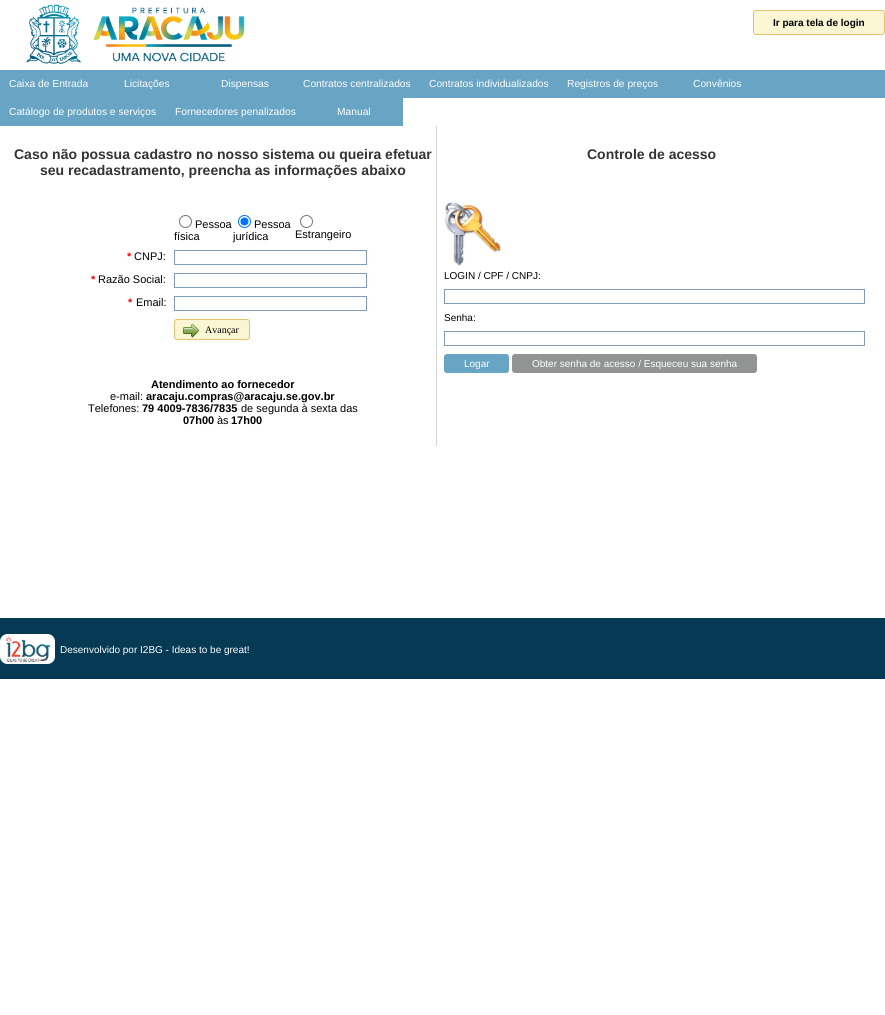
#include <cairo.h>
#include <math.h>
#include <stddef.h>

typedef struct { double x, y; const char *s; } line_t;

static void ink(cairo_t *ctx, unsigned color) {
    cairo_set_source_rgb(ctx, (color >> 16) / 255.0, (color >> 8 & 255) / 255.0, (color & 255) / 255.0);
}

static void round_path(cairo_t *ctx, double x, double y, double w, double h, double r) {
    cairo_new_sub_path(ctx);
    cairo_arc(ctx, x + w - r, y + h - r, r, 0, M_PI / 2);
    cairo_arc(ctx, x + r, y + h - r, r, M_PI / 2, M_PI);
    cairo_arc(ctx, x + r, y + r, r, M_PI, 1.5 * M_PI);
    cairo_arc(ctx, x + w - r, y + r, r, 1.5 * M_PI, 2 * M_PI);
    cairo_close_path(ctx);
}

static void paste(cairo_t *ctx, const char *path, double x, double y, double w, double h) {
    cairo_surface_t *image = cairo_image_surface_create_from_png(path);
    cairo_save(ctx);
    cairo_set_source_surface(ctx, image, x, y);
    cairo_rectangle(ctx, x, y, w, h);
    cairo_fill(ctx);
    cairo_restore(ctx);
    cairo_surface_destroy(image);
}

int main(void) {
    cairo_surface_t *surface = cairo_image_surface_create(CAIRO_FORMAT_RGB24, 885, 1015);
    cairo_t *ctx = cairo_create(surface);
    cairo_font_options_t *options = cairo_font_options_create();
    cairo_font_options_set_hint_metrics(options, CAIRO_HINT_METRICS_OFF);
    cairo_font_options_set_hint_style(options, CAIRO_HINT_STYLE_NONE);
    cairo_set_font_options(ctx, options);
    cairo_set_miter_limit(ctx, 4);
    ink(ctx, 0xFFFFFF);
    cairo_paint(ctx);
    paste(ctx, "media/1.png", 26, 4, 219, 60);
    ink(ctx, 0xFAF6D4);
    round_path(ctx, 753.5, 10.5, 131, 24, 2.5);
    cairo_fill_preserve(ctx);
    ink(ctx, 0xE6C26E);
    cairo_set_line_width(ctx, 1);
    cairo_stroke(ctx);
    cairo_select_font_face(ctx, "Liberation Sans", CAIRO_FONT_SLANT_NORMAL, CAIRO_FONT_WEIGHT_BOLD);
    cairo_set_font_size(ctx, 10);
    ink(ctx, 0x000000);
    cairo_move_to(ctx, 773, 26);
    cairo_show_text(ctx, "Ir para tela de login");
    ink(ctx, 0x68A4C4);
    cairo_rectangle(ctx, 0, 70, 885, 28);
    cairo_fill(ctx);
    cairo_select_font_face(ctx, "Liberation Sans", CAIRO_FONT_SLANT_NORMAL, CAIRO_FONT_WEIGHT_NORMAL);
    cairo_set_font_size(ctx, 10.25);
    ink(ctx, 0xFFFFFF);
    {
        static const line_t items[] = {
            {9, 87, "Caixa de Entrada"},
            {124, 87, "Licitações"},
            {221, 87, "Dispensas"},
            {303, 87, "Contratos centralizados"},
            {429, 87, "Contratos individualizados"},
            {567, 87, "Registros de preços"},
            {693, 87, "Convênios"},
        };
        for (size_t i = 0; i < sizeof items / sizeof *items; i++) {
            cairo_move_to(ctx, items[i].x, items[i].y);
            cairo_show_text(ctx, items[i].s);
        }
    }
    ink(ctx, 0x68A4C4);
    cairo_rectangle(ctx, 0, 98, 403, 28);
    cairo_fill(ctx);
    ink(ctx, 0xFFFFFF);
    {
        static const line_t items[] = {
            {9, 115, "Catálogo de produtos e serviços"},
            {175, 115, "Fornecedores penalizados"},
            {337, 115, "Manual"},
        };
        for (size_t i = 0; i < sizeof items / sizeof *items; i++) {
            cairo_move_to(ctx, items[i].x, items[i].y);
            cairo_show_text(ctx, items[i].s);
        }
    }
    cairo_select_font_face(ctx, "Liberation Sans", CAIRO_FONT_SLANT_NORMAL, CAIRO_FONT_WEIGHT_BOLD);
    cairo_set_font_size(ctx, 14);
    ink(ctx, 0x333333);
    cairo_move_to(ctx, 14, 159);
    cairo_show_text(ctx, "Caso não possua cadastro no nosso sistema ou queira efetuar");
    cairo_move_to(ctx, 40, 175);
    cairo_show_text(ctx, "seu recadastramento, preencha as informações abaixo");
    cairo_new_path(ctx);
    cairo_arc(ctx, 185.5, 221.5, 6, 0, 2 * M_PI);
    ink(ctx, 0x767676);
    cairo_stroke(ctx);
    cairo_select_font_face(ctx, "Liberation Sans", CAIRO_FONT_SLANT_NORMAL, CAIRO_FONT_WEIGHT_NORMAL);
    cairo_set_font_size(ctx, 11);
    ink(ctx, 0x000000);
    cairo_move_to(ctx, 195, 228);
    cairo_show_text(ctx, "Pessoa");
    cairo_move_to(ctx, 174, 240);
    cairo_show_text(ctx, "física");
    cairo_new_path(ctx);
    cairo_arc(ctx, 244.5, 221.5, 6, 0, 2 * M_PI);
    ink(ctx, 0x0075FF);
    cairo_stroke(ctx);
    cairo_arc(ctx, 244.5, 221.5, 4, 0, 2 * M_PI);
    cairo_fill(ctx);
    ink(ctx, 0x000000);
    cairo_move_to(ctx, 254, 228);
    cairo_show_text(ctx, "Pessoa");
    cairo_move_to(ctx, 233, 240);
    cairo_show_text(ctx, "jurídica");
    cairo_new_path(ctx);
    cairo_arc(ctx, 306.5, 221.5, 6, 0, 2 * M_PI);
    ink(ctx, 0x767676);
    cairo_stroke(ctx);
    ink(ctx, 0x000000);
    cairo_move_to(ctx, 295, 238);
    cairo_show_text(ctx, "Estrangeiro");
    cairo_select_font_face(ctx, "Liberation Sans", CAIRO_FONT_SLANT_NORMAL, CAIRO_FONT_WEIGHT_BOLD);
    ink(ctx, 0xFF0000);
    cairo_move_to(ctx, 127, 260);
    cairo_show_text(ctx, "*");
    cairo_select_font_face(ctx, "Liberation Sans", CAIRO_FONT_SLANT_NORMAL, CAIRO_FONT_WEIGHT_NORMAL);
    ink(ctx, 0x000000);
    cairo_move_to(ctx, 134, 260);
    cairo_show_text(ctx, "CNPJ:");
    cairo_rectangle(ctx, 174.5, 250.5, 192, 14);
    ink(ctx, 0x7F9DB9);
    cairo_stroke(ctx);
    cairo_select_font_face(ctx, "Liberation Sans", CAIRO_FONT_SLANT_NORMAL, CAIRO_FONT_WEIGHT_BOLD);
    ink(ctx, 0xFF0000);
    cairo_move_to(ctx, 91, 283);
    cairo_show_text(ctx, "*");
    cairo_select_font_face(ctx, "Liberation Sans", CAIRO_FONT_SLANT_NORMAL, CAIRO_FONT_WEIGHT_NORMAL);
    ink(ctx, 0x000000);
    cairo_move_to(ctx, 98, 283);
    cairo_show_text(ctx, "Razão Social:");
    cairo_rectangle(ctx, 174.5, 273.5, 192, 14);
    ink(ctx, 0x7F9DB9);
    cairo_stroke(ctx);
    cairo_select_font_face(ctx, "Liberation Sans", CAIRO_FONT_SLANT_NORMAL, CAIRO_FONT_WEIGHT_BOLD);
    ink(ctx, 0xFF0000);
    cairo_move_to(ctx, 128, 306);
    cairo_show_text(ctx, "*");
    cairo_select_font_face(ctx, "Liberation Sans", CAIRO_FONT_SLANT_NORMAL, CAIRO_FONT_WEIGHT_NORMAL);
    ink(ctx, 0x000000);
    cairo_move_to(ctx, 136, 306);
    cairo_show_text(ctx, "Email:");
    cairo_rectangle(ctx, 174.5, 296.5, 192, 14);
    ink(ctx, 0x7F9DB9);
    cairo_stroke(ctx);
    ink(ctx, 0xFAF6D4);
    round_path(ctx, 174, 319, 76, 21, 3);
    cairo_fill(ctx);
    paste(ctx, "media/2.png", 183, 323, 16, 15);
    round_path(ctx, 174.5, 319.5, 75, 20, 2.5);
    ink(ctx, 0xE6C26E);
    cairo_stroke(ctx);
    cairo_select_font_face(ctx, "Liberation Serif", CAIRO_FONT_SLANT_NORMAL, CAIRO_FONT_WEIGHT_NORMAL);
    cairo_set_font_size(ctx, 10);
    ink(ctx, 0x000000);
    cairo_move_to(ctx, 205, 333);
    cairo_show_text(ctx, "Avançar");
    cairo_select_font_face(ctx, "Liberation Sans", CAIRO_FONT_SLANT_NORMAL, CAIRO_FONT_WEIGHT_BOLD);
    cairo_set_font_size(ctx, 11);
    cairo_move_to(ctx, 151, 388);
    cairo_show_text(ctx, "Atendimento ao fornecedor");
    cairo_select_font_face(ctx, "Liberation Sans", CAIRO_FONT_SLANT_NORMAL, CAIRO_FONT_WEIGHT_NORMAL);
    cairo_move_to(ctx, 110, 400);
    cairo_show_text(ctx, "e-mail:");
    cairo_select_font_face(ctx, "Liberation Sans", CAIRO_FONT_SLANT_NORMAL, CAIRO_FONT_WEIGHT_BOLD);
    cairo_move_to(ctx, 146, 400);
    cairo_show_text(ctx, "aracaju.compras@aracaju.se.gov.br");
    cairo_select_font_face(ctx, "Liberation Sans", CAIRO_FONT_SLANT_NORMAL, CAIRO_FONT_WEIGHT_NORMAL);
    cairo_move_to(ctx, 88, 412);
    cairo_show_text(ctx, "Telefones:");
    cairo_select_font_face(ctx, "Liberation Sans", CAIRO_FONT_SLANT_NORMAL, CAIRO_FONT_WEIGHT_BOLD);
    cairo_move_to(ctx, 142, 412);
    cairo_show_text(ctx, "79 4009-7836/7835");
    cairo_select_font_face(ctx, "Liberation Sans", CAIRO_FONT_SLANT_NORMAL, CAIRO_FONT_WEIGHT_NORMAL);
    cairo_move_to(ctx, 241, 412);
    cairo_show_text(ctx, "de segunda à sexta das");
    cairo_select_font_face(ctx, "Liberation Sans", CAIRO_FONT_SLANT_NORMAL, CAIRO_FONT_WEIGHT_BOLD);
    cairo_move_to(ctx, 183, 424);
    cairo_show_text(ctx, "07h00");
    cairo_select_font_face(ctx, "Liberation Sans", CAIRO_FONT_SLANT_NORMAL, CAIRO_FONT_WEIGHT_NORMAL);
    cairo_move_to(ctx, 217, 424);
    cairo_show_text(ctx, "às");
    cairo_select_font_face(ctx, "Liberation Sans", CAIRO_FONT_SLANT_NORMAL, CAIRO_FONT_WEIGHT_BOLD);
    cairo_move_to(ctx, 231, 424);
    cairo_show_text(ctx, "17h00");
    ink(ctx, 0xD3D3D3);
    cairo_rectangle(ctx, 436, 126, 1, 320);
    cairo_fill(ctx);
    cairo_set_font_size(ctx, 14);
    ink(ctx, 0x333333);
    cairo_move_to(ctx, 587, 159);
    cairo_show_text(ctx, "Controle de acesso");
    paste(ctx, "media/3.png", 445, 202, 56, 64);
    cairo_select_font_face(ctx, "Liberation Sans", CAIRO_FONT_SLANT_NORMAL, CAIRO_FONT_WEIGHT_NORMAL);
    cairo_set_font_size(ctx, 10);
    ink(ctx, 0x000000);
    cairo_move_to(ctx, 444, 279);
    cairo_show_text(ctx, "LOGIN / CPF / CNPJ:");
    cairo_rectangle(ctx, 444.5, 289.5, 420, 14);
    ink(ctx, 0x7F9DB9);
    cairo_stroke(ctx);
    ink(ctx, 0x000000);
    cairo_move_to(ctx, 444, 321);
    cairo_show_text(ctx, "Senha:");
    cairo_rectangle(ctx, 444.5, 331.5, 420, 14);
    ink(ctx, 0x7F9DB9);
    cairo_stroke(ctx);
    ink(ctx, 0x68A4C4);
    round_path(ctx, 444, 354, 65, 19, 3);
    cairo_fill(ctx);
    ink(ctx, 0xFFFFFF);
    cairo_move_to(ctx, 464, 367);
    cairo_show_text(ctx, "Logar");
    ink(ctx, 0x929494);
    round_path(ctx, 512, 354, 245, 19, 3);
    cairo_fill(ctx);
    ink(ctx, 0xFFFFFF);
    cairo_move_to(ctx, 532, 367);
    cairo_show_text(ctx, "Obter senha de acesso / Esqueceu sua senha");
    ink(ctx, 0x063954);
    cairo_rectangle(ctx, 0, 618, 885, 61);
    cairo_fill(ctx);
    paste(ctx, "media/4.png", 0, 634, 55, 30);
    ink(ctx, 0xFFFFFF);
    cairo_move_to(ctx, 60, 653);
    cairo_show_text(ctx, "Desenvolvido por I2BG - Ideas to be great!");
    cairo_surface_write_to_png(surface, "image.png");
    cairo_font_options_destroy(options);
    cairo_destroy(ctx);
    cairo_surface_destroy(surface);
    return 0;
}
